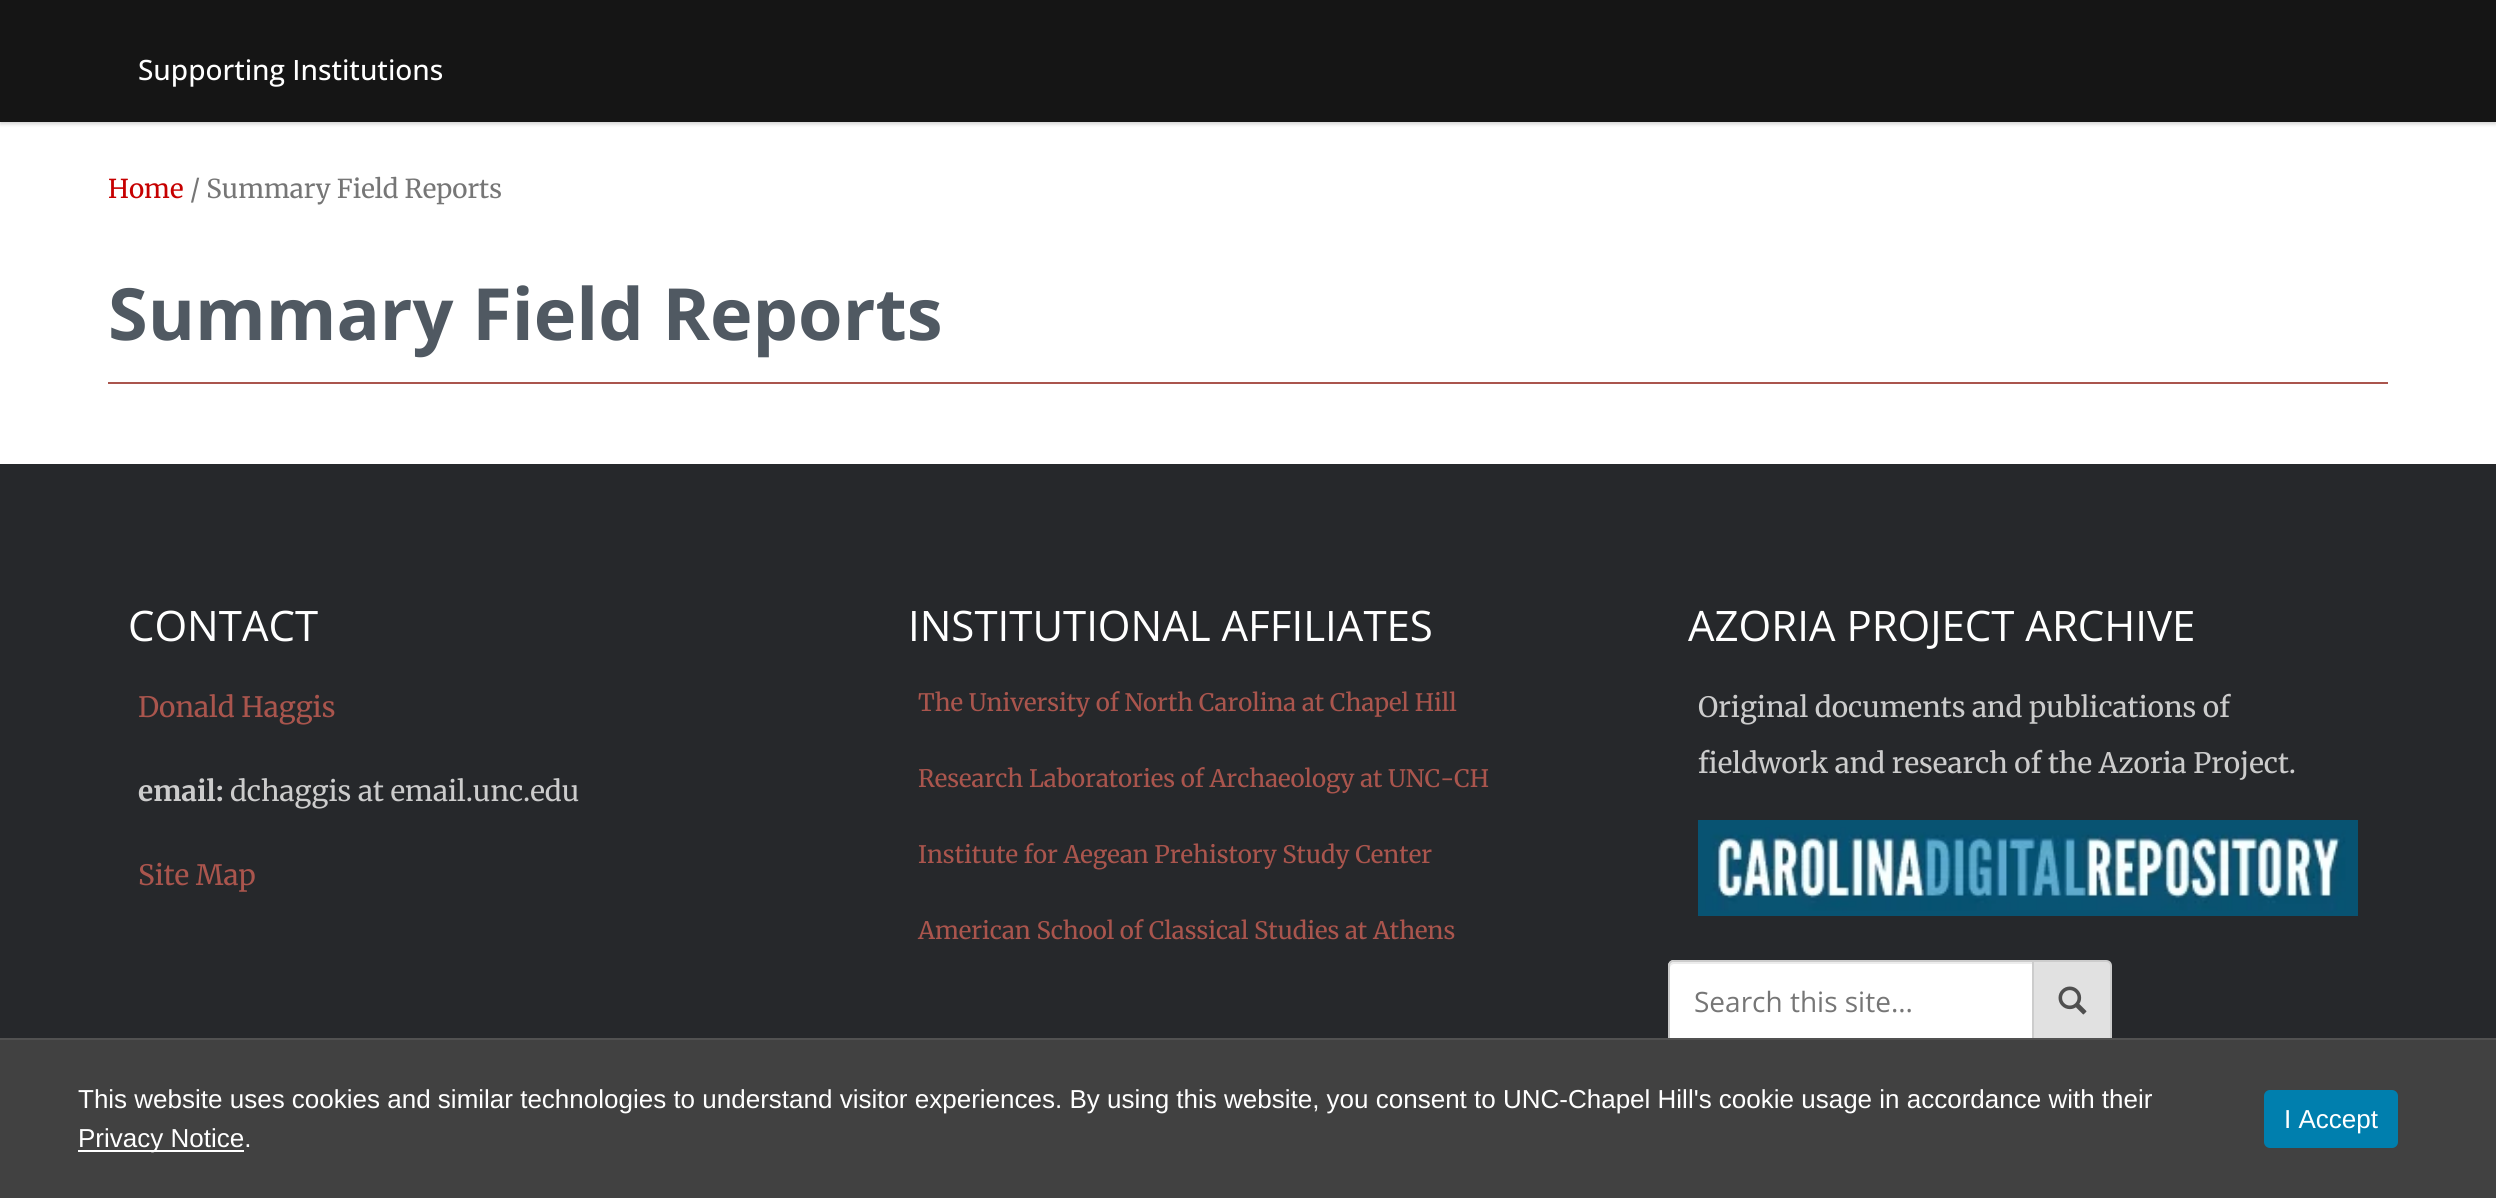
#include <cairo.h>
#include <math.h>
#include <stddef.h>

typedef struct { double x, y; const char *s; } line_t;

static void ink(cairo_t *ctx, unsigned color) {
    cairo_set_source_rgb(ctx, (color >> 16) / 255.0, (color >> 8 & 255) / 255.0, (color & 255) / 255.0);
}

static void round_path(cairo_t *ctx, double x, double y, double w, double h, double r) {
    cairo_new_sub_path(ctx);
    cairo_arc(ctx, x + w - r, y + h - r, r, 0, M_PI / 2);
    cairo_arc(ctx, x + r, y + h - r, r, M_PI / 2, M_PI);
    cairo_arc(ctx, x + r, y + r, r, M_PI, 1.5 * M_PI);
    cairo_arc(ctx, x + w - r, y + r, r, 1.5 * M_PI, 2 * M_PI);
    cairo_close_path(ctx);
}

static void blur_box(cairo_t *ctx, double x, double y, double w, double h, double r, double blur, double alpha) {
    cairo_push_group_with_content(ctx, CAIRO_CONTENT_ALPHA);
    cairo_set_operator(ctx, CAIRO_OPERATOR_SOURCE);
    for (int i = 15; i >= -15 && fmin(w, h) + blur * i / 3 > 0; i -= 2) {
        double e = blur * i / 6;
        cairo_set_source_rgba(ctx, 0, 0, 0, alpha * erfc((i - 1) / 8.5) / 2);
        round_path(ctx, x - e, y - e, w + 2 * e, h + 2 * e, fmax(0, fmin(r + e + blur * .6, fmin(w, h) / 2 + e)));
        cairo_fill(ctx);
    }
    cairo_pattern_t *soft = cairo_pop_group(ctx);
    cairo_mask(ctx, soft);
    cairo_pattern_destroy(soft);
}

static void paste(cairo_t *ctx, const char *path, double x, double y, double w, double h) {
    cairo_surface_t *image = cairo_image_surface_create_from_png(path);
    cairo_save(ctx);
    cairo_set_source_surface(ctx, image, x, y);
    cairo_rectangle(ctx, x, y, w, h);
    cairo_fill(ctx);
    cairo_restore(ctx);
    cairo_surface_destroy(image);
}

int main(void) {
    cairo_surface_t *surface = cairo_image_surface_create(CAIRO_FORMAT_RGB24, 2496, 1198);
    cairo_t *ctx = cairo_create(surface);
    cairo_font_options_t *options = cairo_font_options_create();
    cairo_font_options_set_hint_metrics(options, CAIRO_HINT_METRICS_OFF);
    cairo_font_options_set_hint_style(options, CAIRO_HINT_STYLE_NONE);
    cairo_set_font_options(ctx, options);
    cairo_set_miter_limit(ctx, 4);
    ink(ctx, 0xFFFFFF);
    cairo_paint(ctx);
    ink(ctx, 0x646464);
    blur_box(ctx, 0, -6, 2496, 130, 0, 2, 0.3);
    ink(ctx, 0x151515);
    cairo_rectangle(ctx, 0, 0, 2496, 122);
    cairo_fill(ctx);
    cairo_select_font_face(ctx, "Open Sans Medium", CAIRO_FONT_SLANT_NORMAL, CAIRO_FONT_WEIGHT_NORMAL);
    cairo_set_font_size(ctx, 28);
    ink(ctx, 0xFFFFFF);
    cairo_move_to(ctx, 138, 80);
    cairo_show_text(ctx, "Supporting Institutions");
    cairo_select_font_face(ctx, "Merriweather", CAIRO_FONT_SLANT_NORMAL, CAIRO_FONT_WEIGHT_NORMAL);
    cairo_set_font_size(ctx, 26);
    ink(ctx, 0xC60000);
    cairo_move_to(ctx, 108, 198);
    cairo_show_text(ctx, "Home");
    ink(ctx, 0x767676);
    cairo_move_to(ctx, 190, 198);
    cairo_show_text(ctx, "/ Summary Field Reports");
    ink(ctx, 0xAA554D);
    cairo_rectangle(ctx, 108, 382, 2280, 2);
    cairo_fill(ctx);
    cairo_select_font_face(ctx, "Open Sans", CAIRO_FONT_SLANT_NORMAL, CAIRO_FONT_WEIGHT_BOLD);
    cairo_set_font_size(ctx, 72);
    ink(ctx, 0x505962);
    cairo_move_to(ctx, 108, 340);
    cairo_show_text(ctx, "Summary Field Reports");
    ink(ctx, 0x26282B);
    cairo_rectangle(ctx, 0, 464, 2496, 574);
    cairo_fill(ctx);
    cairo_select_font_face(ctx, "Open Sans", CAIRO_FONT_SLANT_NORMAL, CAIRO_FONT_WEIGHT_NORMAL);
    cairo_set_font_size(ctx, 42);
    ink(ctx, 0xFFFFFF);
    cairo_move_to(ctx, 128, 641);
    cairo_show_text(ctx, "CONTACT");
    cairo_select_font_face(ctx, "Merriweather", CAIRO_FONT_SLANT_NORMAL, CAIRO_FONT_WEIGHT_NORMAL);
    cairo_set_font_size(ctx, 28);
    ink(ctx, 0xAA554D);
    cairo_move_to(ctx, 138, 717);
    cairo_show_text(ctx, "Donald Haggis");
    cairo_select_font_face(ctx, "Merriweather", CAIRO_FONT_SLANT_NORMAL, CAIRO_FONT_WEIGHT_BOLD);
    ink(ctx, 0xCCCCCC);
    cairo_move_to(ctx, 138, 801);
    cairo_show_text(ctx, "email:");
    cairo_select_font_face(ctx, "Merriweather", CAIRO_FONT_SLANT_NORMAL, CAIRO_FONT_WEIGHT_NORMAL);
    cairo_move_to(ctx, 230, 801);
    cairo_show_text(ctx, "dchaggis at email.unc.edu");
    ink(ctx, 0xAA554D);
    cairo_move_to(ctx, 138, 885);
    cairo_show_text(ctx, "Site Map");
    cairo_select_font_face(ctx, "Open Sans", CAIRO_FONT_SLANT_NORMAL, CAIRO_FONT_WEIGHT_NORMAL);
    cairo_set_font_size(ctx, 42);
    ink(ctx, 0xFFFFFF);
    cairo_move_to(ctx, 908, 641);
    cairo_show_text(ctx, "INSTITUTIONAL AFFILIATES");
    cairo_select_font_face(ctx, "Merriweather", CAIRO_FONT_SLANT_NORMAL, CAIRO_FONT_WEIGHT_NORMAL);
    cairo_set_font_size(ctx, 24);
    ink(ctx, 0xAA554D);
    {
        static const line_t items[] = {
            {918, 711, "The University of North Carolina at Chapel Hill"},
            {918, 787, "Research Laboratories of Archaeology at UNC-CH"},
            {918, 863, "Institute for Aegean Prehistory Study Center"},
            {918, 939, "American School of Classical Studies at Athens"},
        };
        for (size_t i = 0; i < sizeof items / sizeof *items; i++) {
            cairo_move_to(ctx, items[i].x, items[i].y);
            cairo_show_text(ctx, items[i].s);
        }
    }
    cairo_select_font_face(ctx, "Open Sans", CAIRO_FONT_SLANT_NORMAL, CAIRO_FONT_WEIGHT_NORMAL);
    cairo_set_font_size(ctx, 42);
    ink(ctx, 0xFFFFFF);
    cairo_move_to(ctx, 1688, 641);
    cairo_show_text(ctx, "AZORIA PROJECT ARCHIVE");
    cairo_select_font_face(ctx, "Merriweather", CAIRO_FONT_SLANT_NORMAL, CAIRO_FONT_WEIGHT_NORMAL);
    cairo_set_font_size(ctx, 28);
    ink(ctx, 0xCCCCCC);
    cairo_move_to(ctx, 1698, 717);
    cairo_show_text(ctx, "Original documents and publications of");
    cairo_move_to(ctx, 1698, 773);
    cairo_show_text(ctx, "fieldwork and research of the Azoria Project.");
    paste(ctx, "media/1.png", 1698, 820, 660, 96);
    ink(ctx, 0xFFFFFF);
    cairo_new_path(ctx);
    cairo_move_to(ctx, 1674, 960);
    cairo_line_to(ctx, 2034, 960);
    cairo_line_to(ctx, 2034, 1044);
    cairo_line_to(ctx, 1674, 1044);
    cairo_curve_to(ctx, 1670.5, 1044, 1668, 1041.5, 1668, 1038);
    cairo_line_to(ctx, 1668, 966);
    cairo_curve_to(ctx, 1668, 962.5, 1670.5, 960, 1674, 960);
    cairo_close_path(ctx);
    cairo_fill(ctx);
    ink(ctx, 0xECECEC);
    cairo_new_path(ctx);
    cairo_move_to(ctx, 1674, 964);
    cairo_line_to(ctx, 2032, 964);
    cairo_line_to(ctx, 2032, 962);
    cairo_line_to(ctx, 1674, 962);
    cairo_curve_to(ctx, 1672, 962, 1670, 964, 1670, 966);
    cairo_line_to(ctx, 1670, 968);
    cairo_curve_to(ctx, 1670, 966, 1672, 964, 1674, 964);
    cairo_close_path(ctx);
    cairo_fill(ctx);
    cairo_new_path(ctx);
    cairo_move_to(ctx, 1674, 961);
    cairo_line_to(ctx, 2033, 961);
    cairo_line_to(ctx, 2033, 1043);
    cairo_line_to(ctx, 1674, 1043);
    cairo_curve_to(ctx, 1671, 1043, 1669, 1041, 1669, 1038);
    cairo_line_to(ctx, 1669, 966);
    cairo_curve_to(ctx, 1669, 963, 1671, 961, 1674, 961);
    cairo_close_path(ctx);
    ink(ctx, 0xCCCCCC);
    cairo_stroke(ctx);
    cairo_select_font_face(ctx, "Open Sans", CAIRO_FONT_SLANT_NORMAL, CAIRO_FONT_WEIGHT_NORMAL);
    ink(ctx, 0x767676);
    cairo_move_to(ctx, 1694, 1012);
    cairo_show_text(ctx, "Search this site...");
    ink(ctx, 0xE1E1E1);
    cairo_new_path(ctx);
    cairo_move_to(ctx, 2033, 961);
    cairo_line_to(ctx, 2106, 961);
    cairo_curve_to(ctx, 2109, 961, 2111, 963, 2111, 966);
    cairo_line_to(ctx, 2111, 1038);
    cairo_curve_to(ctx, 2111, 1041, 2109, 1043, 2106, 1043);
    cairo_line_to(ctx, 2033, 1043);
    cairo_close_path(ctx);
    cairo_fill_preserve(ctx);
    ink(ctx, 0xCCCCCC);
    cairo_stroke(ctx);
    paste(ctx, "media/2.png", 2058, 986, 29, 29);
    ink(ctx, 0x414141);
    cairo_rectangle(ctx, 0, 1040, 2496, 158);
    cairo_fill(ctx);
    ink(ctx, 0x515151);
    cairo_rectangle(ctx, 0, 1038, 2496, 2);
    cairo_fill(ctx);
    cairo_select_font_face(ctx, "Liberation Sans", CAIRO_FONT_SLANT_NORMAL, CAIRO_FONT_WEIGHT_NORMAL);
    cairo_set_font_size(ctx, 26);
    ink(ctx, 0xFFFFFF);
    cairo_move_to(ctx, 78, 1108);
    cairo_show_text(ctx, "This website uses cookies and similar technologies to understand visitor experiences. By using this website, you consent to UNC-Chapel Hill's cookie usage in accordance with their");
    cairo_rectangle(ctx, 78, 1150, 166, 2);
    cairo_fill(ctx);
    cairo_move_to(ctx, 78, 1147);
    cairo_show_text(ctx, "Privacy Notice.");
    ink(ctx, 0x007FAE);
    round_path(ctx, 2264, 1090, 134, 58, 6);
    cairo_fill(ctx);
    ink(ctx, 0xFFFFFF);
    cairo_move_to(ctx, 2284, 1128);
    cairo_show_text(ctx, "I Accept");
    cairo_surface_write_to_png(surface, "image.png");
    cairo_font_options_destroy(options);
    cairo_destroy(ctx);
    cairo_surface_destroy(surface);
    return 0;
}
